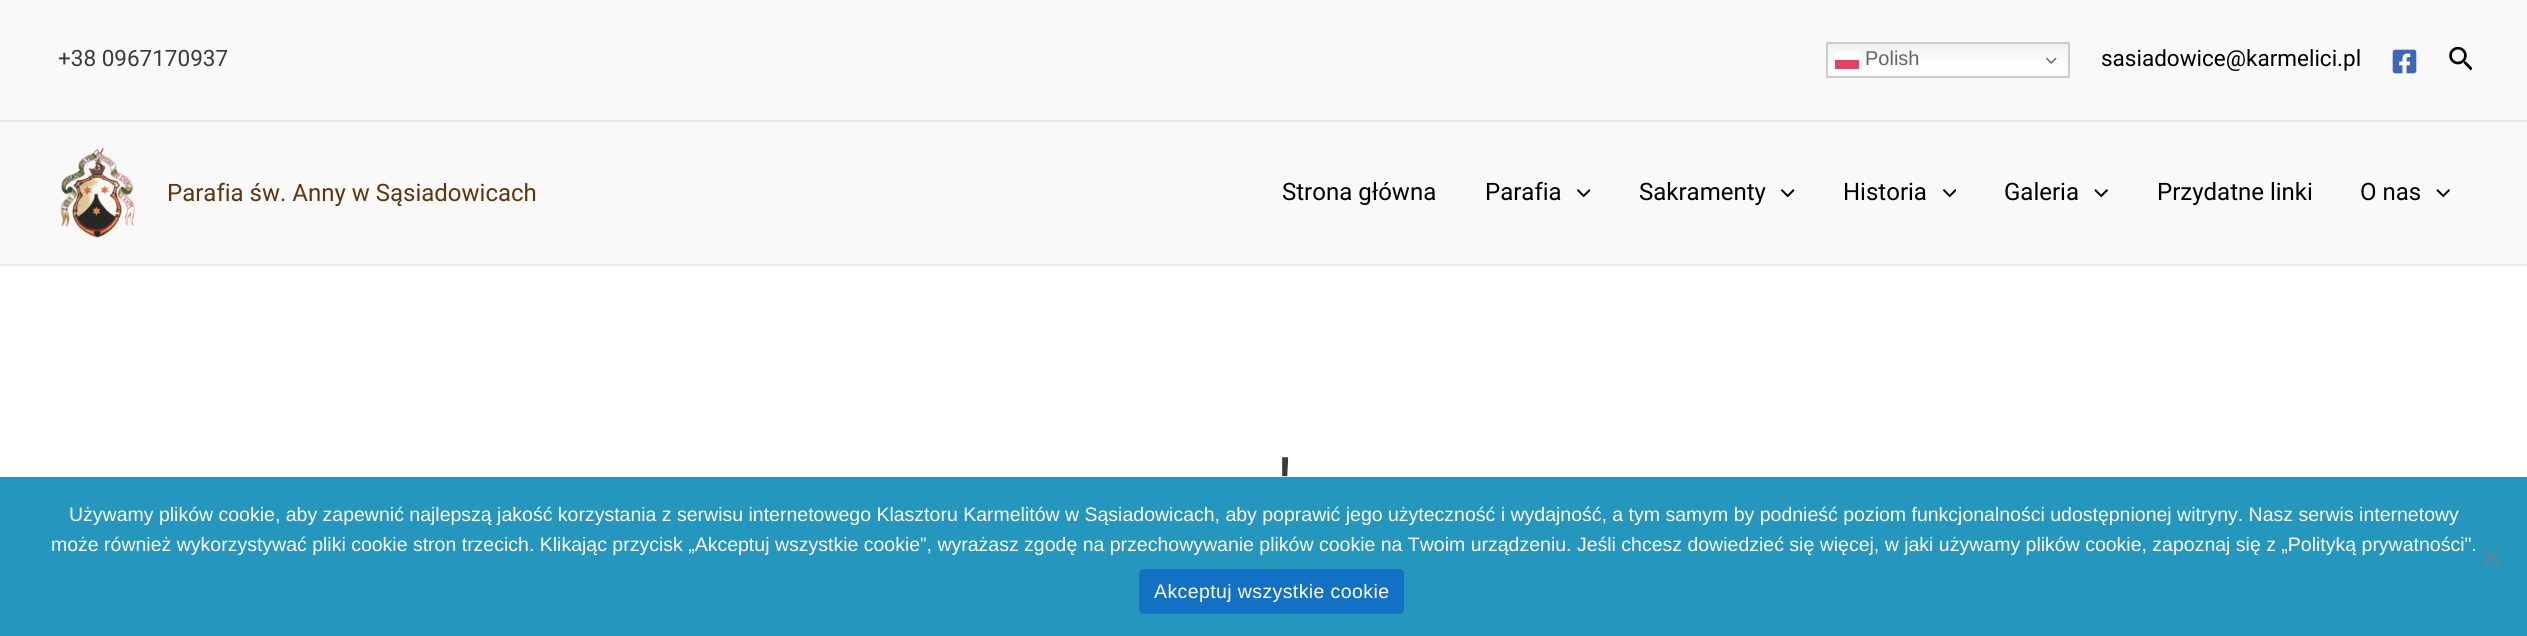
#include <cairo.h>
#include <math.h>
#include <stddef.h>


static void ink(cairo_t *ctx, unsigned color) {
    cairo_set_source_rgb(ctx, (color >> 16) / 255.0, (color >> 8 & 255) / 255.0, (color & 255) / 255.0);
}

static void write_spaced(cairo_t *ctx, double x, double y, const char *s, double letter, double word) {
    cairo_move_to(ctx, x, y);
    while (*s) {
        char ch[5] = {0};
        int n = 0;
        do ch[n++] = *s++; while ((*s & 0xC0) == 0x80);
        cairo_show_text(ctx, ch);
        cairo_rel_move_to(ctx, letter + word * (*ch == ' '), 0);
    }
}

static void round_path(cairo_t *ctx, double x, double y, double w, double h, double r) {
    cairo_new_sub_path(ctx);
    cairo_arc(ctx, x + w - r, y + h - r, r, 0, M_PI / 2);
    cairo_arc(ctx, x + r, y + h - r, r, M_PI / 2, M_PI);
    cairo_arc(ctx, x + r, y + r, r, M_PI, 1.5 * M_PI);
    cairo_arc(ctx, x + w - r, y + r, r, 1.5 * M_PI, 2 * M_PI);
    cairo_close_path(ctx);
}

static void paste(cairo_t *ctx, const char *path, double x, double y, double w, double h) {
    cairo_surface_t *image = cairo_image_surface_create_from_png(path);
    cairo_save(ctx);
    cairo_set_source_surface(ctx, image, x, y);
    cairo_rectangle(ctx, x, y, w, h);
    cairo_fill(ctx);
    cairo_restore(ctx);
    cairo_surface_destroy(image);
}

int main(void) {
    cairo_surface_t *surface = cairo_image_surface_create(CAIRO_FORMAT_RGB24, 2527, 636);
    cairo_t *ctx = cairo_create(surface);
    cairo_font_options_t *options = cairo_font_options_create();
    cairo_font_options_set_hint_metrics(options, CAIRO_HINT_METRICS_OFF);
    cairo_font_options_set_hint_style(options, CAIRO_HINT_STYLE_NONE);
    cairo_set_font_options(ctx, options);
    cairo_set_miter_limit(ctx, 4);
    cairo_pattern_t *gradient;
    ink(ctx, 0xFFFFFF);
    cairo_paint(ctx);
    ink(ctx, 0xF9F9F9);
    cairo_rectangle(ctx, 0, 0, 2527, 120);
    cairo_fill(ctx);
    ink(ctx, 0xEAEAEA);
    cairo_rectangle(ctx, 0, 120, 2527, 2);
    cairo_fill(ctx);
    cairo_select_font_face(ctx, "Roboto", CAIRO_FONT_SLANT_NORMAL, CAIRO_FONT_WEIGHT_NORMAL);
    cairo_set_font_size(ctx, 22.5);
    ink(ctx, 0x3A3A3A);
    cairo_move_to(ctx, 58, 66);
    cairo_show_text(ctx, "+38 0967170937");
    gradient = cairo_pattern_create_linear(1948, 42, 1948, 78);
    cairo_pattern_add_color_stop_rgba(gradient, 0, 0.937, 0.937, 0.937, 1);
    cairo_pattern_add_color_stop_rgba(gradient, 0.7, 1, 1, 1, 1);
    cairo_set_source(ctx, gradient);
    cairo_pattern_destroy(gradient);
    cairo_rectangle(ctx, 1828, 44, 240, 32);
    cairo_fill(ctx);
    gradient = cairo_pattern_create_linear(1948, 42, 1948, 78);
    cairo_pattern_add_color_stop_rgba(gradient, 0, 0.988, 0.988, 0.988, 1);
    cairo_pattern_add_color_stop_rgba(gradient, 0.7, 1, 1, 1, 1);
    cairo_set_source(ctx, gradient);
    cairo_pattern_destroy(gradient);
    cairo_rectangle(ctx, 1835, 51, 24, 9);
    cairo_fill(ctx);
    cairo_rectangle(ctx, 1827, 43, 242, 34);
    ink(ctx, 0xCCCCCC);
    cairo_stroke(ctx);
    ink(ctx, 0xE34363);
    cairo_rectangle(ctx, 1835, 60, 24, 9);
    cairo_fill(ctx);
    cairo_select_font_face(ctx, "Liberation Sans", CAIRO_FONT_SLANT_NORMAL, CAIRO_FONT_WEIGHT_NORMAL);
    cairo_set_font_size(ctx, 20);
    ink(ctx, 0x666666);
    cairo_move_to(ctx, 1865, 65);
    cairo_show_text(ctx, "Polish");
    paste(ctx, "media/1.png", 2046, 57, 11, 7);
    cairo_select_font_face(ctx, "Roboto", CAIRO_FONT_SLANT_NORMAL, CAIRO_FONT_WEIGHT_NORMAL);
    cairo_set_font_size(ctx, 22.5);
    ink(ctx, 0x000000);
    cairo_move_to(ctx, 2101, 66);
    cairo_show_text(ctx, "sasiadowice@karmelici.pl");
    paste(ctx, "media/2.png", 2392, 49, 25, 25);
    paste(ctx, "media/3.png", 2449, 47, 23, 24);
    ink(ctx, 0xF9F9F9);
    cairo_rectangle(ctx, 0, 122, 2527, 142);
    cairo_fill(ctx);
    ink(ctx, 0xEAEAEA);
    cairo_rectangle(ctx, 0, 264, 2527, 2);
    cairo_fill(ctx);
    paste(ctx, "media/4.png", 60, 147, 75, 91);
    cairo_set_font_size(ctx, 24);
    ink(ctx, 0x5D370C);
    cairo_move_to(ctx, 167, 201);
    cairo_show_text(ctx, "Parafia św. Anny w Sąsiadowicach");
    ink(ctx, 0x000000);
    cairo_move_to(ctx, 1282, 200);
    cairo_show_text(ctx, "Strona główna");
    cairo_move_to(ctx, 1485, 200);
    cairo_show_text(ctx, "Parafia");
    paste(ctx, "media/5.png", 1577, 189, 13, 9);
    cairo_move_to(ctx, 1639, 200);
    cairo_show_text(ctx, "Sakramenty");
    paste(ctx, "media/6.png", 1781, 189, 14, 9);
    cairo_move_to(ctx, 1843, 200);
    cairo_show_text(ctx, "Historia");
    paste(ctx, "media/5.png", 1943, 189, 13, 9);
    cairo_move_to(ctx, 2004, 200);
    cairo_show_text(ctx, "Galeria");
    paste(ctx, "media/7.png", 2094, 189, 14, 9);
    cairo_move_to(ctx, 2157, 200);
    cairo_show_text(ctx, "Przydatne linki");
    cairo_move_to(ctx, 2360, 200);
    cairo_show_text(ctx, "O nas");
    paste(ctx, "media/7.png", 2436, 189, 14, 9);
    cairo_set_font_size(ctx, 81);
    ink(ctx, 0x3A3A3A);
    cairo_move_to(ctx, 1278, 518);
    cairo_show_text(ctx, "'");
    ink(ctx, 0x2596BE);
    cairo_rectangle(ctx, 0, 477, 2527, 159);
    cairo_fill(ctx);
    cairo_select_font_face(ctx, "Liberation Sans", CAIRO_FONT_SLANT_NORMAL, CAIRO_FONT_WEIGHT_NORMAL);
    cairo_set_font_size(ctx, 19.5);
    ink(ctx, 0xFFFFFF);
    cairo_move_to(ctx, 69, 521);
    cairo_show_text(ctx, "Używamy plików cookie, aby zapewnić najlepszą jakość korzystania z serwisu internetowego Klasztoru Karmelitów w Sąsiadowicach, aby poprawić jego użyteczność i wydajność, a tym samym by podnieść poziom funkcjonalności udostępnionej witryny. Nasz serwis internetowy");
    cairo_move_to(ctx, 51, 551);
    cairo_show_text(ctx, "może również wykorzystywać pliki cookie stron trzecich. Klikając przycisk „Akceptuj wszystkie cookie”, wyrażasz zgodę na przechowywanie plików cookie na Twoim urządzeniu. Jeśli chcesz dowiedzieć się więcej, w jaki używamy plików cookie, zapoznaj się z „Polityką prywatności\".");
    ink(ctx, 0x538B9F);
    cairo_new_path(ctx);
    cairo_move_to(ctx, 2498.5, 548);
    cairo_line_to(ctx, 2500.5, 550.5);
    cairo_line_to(ctx, 2484.5, 566.5);
    cairo_line_to(ctx, 2482.5, 564);
    cairo_close_path(ctx);
    cairo_fill(ctx);
    cairo_new_path(ctx);
    cairo_move_to(ctx, 2482.5, 550.5);
    cairo_line_to(ctx, 2484.5, 548);
    cairo_line_to(ctx, 2500.5, 564);
    cairo_line_to(ctx, 2498.5, 566.5);
    cairo_close_path(ctx);
    cairo_fill(ctx);
    ink(ctx, 0x1371C3);
    round_path(ctx, 1139, 569, 265, 45, 5);
    cairo_fill(ctx);
    ink(ctx, 0xFFFFFF);
    write_spaced(ctx, 1154, 598, "Akceptuj wszystkie cookie", 0.4, 0);
    cairo_surface_write_to_png(surface, "image.png");
    cairo_font_options_destroy(options);
    cairo_destroy(ctx);
    cairo_surface_destroy(surface);
    return 0;
}
